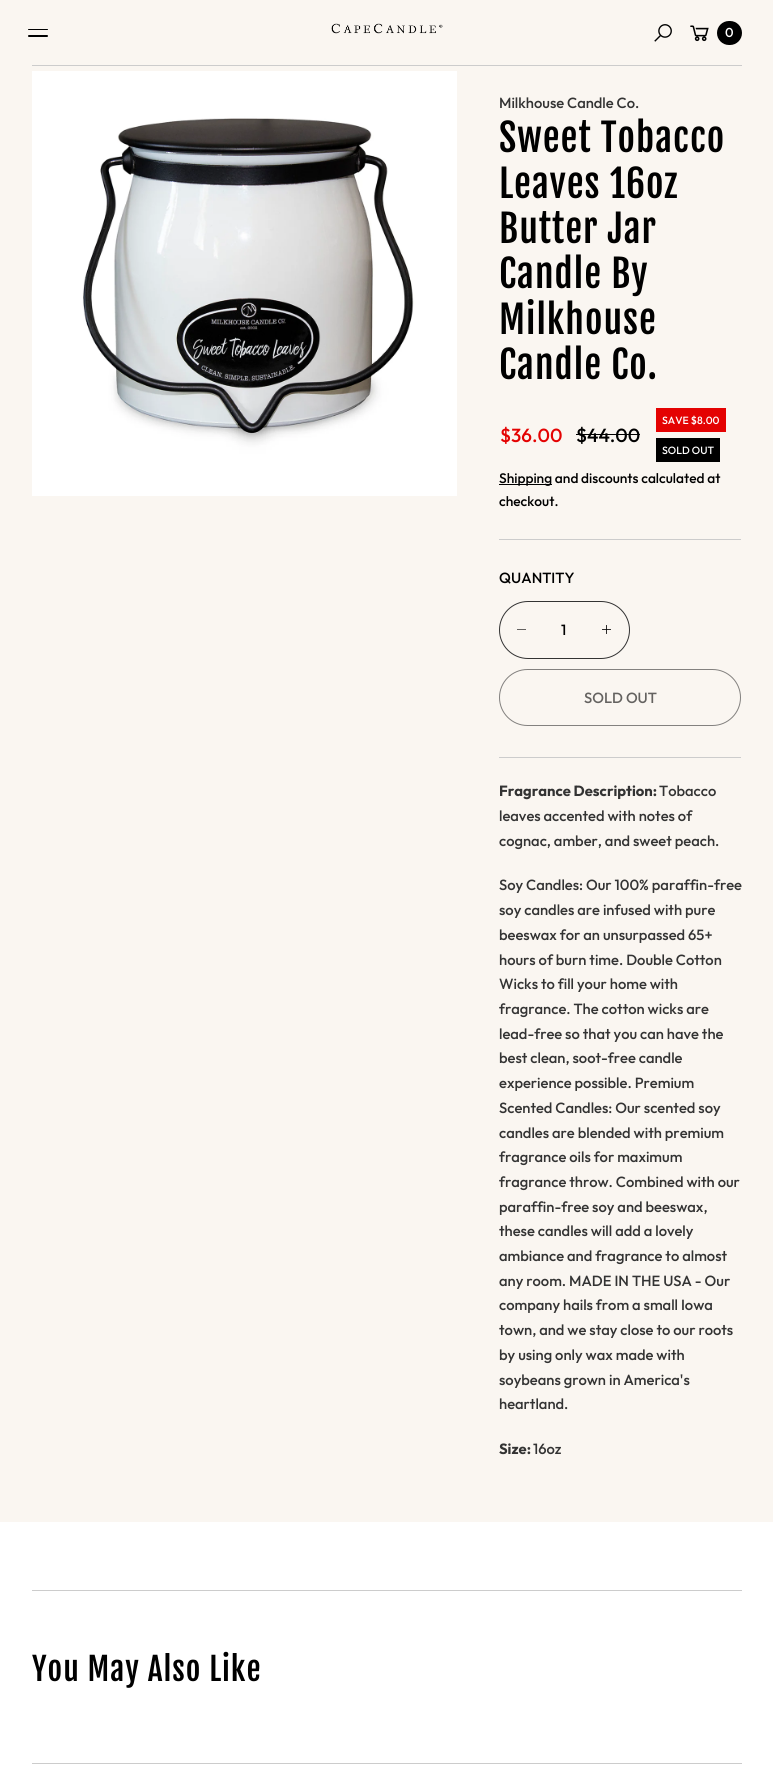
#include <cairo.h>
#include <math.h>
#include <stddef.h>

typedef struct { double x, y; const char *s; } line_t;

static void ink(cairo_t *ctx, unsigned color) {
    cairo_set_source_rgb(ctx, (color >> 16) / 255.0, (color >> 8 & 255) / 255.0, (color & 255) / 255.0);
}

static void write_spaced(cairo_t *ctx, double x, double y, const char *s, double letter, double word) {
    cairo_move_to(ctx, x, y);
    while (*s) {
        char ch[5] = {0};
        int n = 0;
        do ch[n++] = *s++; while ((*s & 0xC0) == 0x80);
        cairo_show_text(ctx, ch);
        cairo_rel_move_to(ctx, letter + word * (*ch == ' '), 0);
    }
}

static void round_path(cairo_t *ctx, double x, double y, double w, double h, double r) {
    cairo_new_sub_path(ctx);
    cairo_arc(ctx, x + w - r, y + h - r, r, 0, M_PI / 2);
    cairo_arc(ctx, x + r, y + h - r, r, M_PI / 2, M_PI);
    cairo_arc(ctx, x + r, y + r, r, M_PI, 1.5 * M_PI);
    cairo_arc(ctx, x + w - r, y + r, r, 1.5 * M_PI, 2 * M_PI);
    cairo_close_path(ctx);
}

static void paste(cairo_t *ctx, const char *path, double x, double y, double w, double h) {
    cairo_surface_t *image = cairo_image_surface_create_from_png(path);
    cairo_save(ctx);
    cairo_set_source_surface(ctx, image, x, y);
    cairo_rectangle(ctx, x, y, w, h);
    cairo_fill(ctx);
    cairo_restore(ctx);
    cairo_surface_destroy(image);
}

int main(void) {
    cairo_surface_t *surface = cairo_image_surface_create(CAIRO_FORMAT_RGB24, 773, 1779);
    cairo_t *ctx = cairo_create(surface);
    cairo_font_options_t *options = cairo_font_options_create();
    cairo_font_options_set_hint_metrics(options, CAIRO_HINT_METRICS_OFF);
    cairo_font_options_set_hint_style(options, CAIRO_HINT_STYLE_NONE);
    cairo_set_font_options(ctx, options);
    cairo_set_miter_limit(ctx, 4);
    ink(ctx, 0xFFFFFF);
    cairo_paint(ctx);
    ink(ctx, 0xFAF6F1);
    cairo_rectangle(ctx, 0, 0, 773, 1522);
    cairo_fill(ctx);
    ink(ctx, 0xCCCCCC);
    cairo_rectangle(ctx, 32, 65, 710, 1);
    cairo_fill(ctx);
    ink(ctx, 0x000000);
    round_path(ctx, 28, 29, 20, 1, 0.5);
    cairo_fill(ctx);
    round_path(ctx, 28, 35, 20, 2, 1);
    cairo_fill(ctx);
    paste(ctx, "media/1.png", 331, 23, 112, 11);
    paste(ctx, "media/2.png", 654, 24, 18, 18);
    paste(ctx, "media/3.png", 690, 25, 19, 17);
    round_path(ctx, 717, 21, 25, 24, 12);
    cairo_fill(ctx);
    cairo_select_font_face(ctx, "Outfit Medium", CAIRO_FONT_SLANT_NORMAL, CAIRO_FONT_WEIGHT_NORMAL);
    cairo_set_font_size(ctx, 13);
    ink(ctx, 0xFFFFFF);
    cairo_move_to(ctx, 725, 37);
    cairo_show_text(ctx, "0");
    paste(ctx, "media/4.png", 32, 71, 425, 425);
    cairo_set_font_size(ctx, 14.75);
    ink(ctx, 0x333333);
    cairo_move_to(ctx, 499, 108);
    cairo_show_text(ctx, "Milkhouse Candle Co.");
    cairo_select_font_face(ctx, "Fjalla One", CAIRO_FONT_SLANT_NORMAL, CAIRO_FONT_WEIGHT_NORMAL);
    cairo_set_font_size(ctx, 37.75);
    ink(ctx, 0x000000);
    {
        static const line_t items[] = {
            {499, 152, "Sweet Tobacco"},
            {499, 198, "Leaves 16oz"},
            {499, 243, "Butter Jar"},
            {499, 288, "Candle By"},
            {499, 334, "Milkhouse"},
            {499, 379, "Candle Co."},
        };
        for (size_t i = 0; i < sizeof items / sizeof *items; i++) {
            write_spaced(ctx, items[i].x, items[i].y, items[i].s, 1, 0);
        }
    }
    ink(ctx, 0xCCCCCC);
    cairo_rectangle(ctx, 499, 539, 242, 1);
    cairo_fill(ctx);
    cairo_select_font_face(ctx, "Outfit Medium", CAIRO_FONT_SLANT_NORMAL, CAIRO_FONT_WEIGHT_NORMAL);
    cairo_set_font_size(ctx, 19);
    ink(ctx, 0xE40202);
    cairo_move_to(ctx, 500, 442);
    cairo_show_text(ctx, "$36.00");
    ink(ctx, 0x000000);
    cairo_move_to(ctx, 576, 442);
    cairo_show_text(ctx, "$44.00");
    cairo_rectangle(ctx, 576, 434, 64, 1);
    cairo_fill(ctx);
    ink(ctx, 0xE40202);
    cairo_rectangle(ctx, 656, 408, 70, 24);
    cairo_fill(ctx);
    cairo_set_font_size(ctx, 10.5);
    ink(ctx, 0xFFFFFF);
    cairo_move_to(ctx, 662, 424);
    cairo_show_text(ctx, "SAVE $8.00");
    ink(ctx, 0x000000);
    cairo_rectangle(ctx, 656, 438, 64, 24);
    cairo_fill(ctx);
    ink(ctx, 0xFFFFFF);
    cairo_move_to(ctx, 662, 454);
    cairo_show_text(ctx, "SOLD OUT");
    ink(ctx, 0x000000);
    cairo_rectangle(ctx, 499, 484, 53, 1);
    cairo_fill(ctx);
    cairo_set_font_size(ctx, 13.75);
    cairo_move_to(ctx, 499, 483);
    cairo_show_text(ctx, "Shipping and discounts calculated at");
    cairo_move_to(ctx, 499, 506);
    cairo_show_text(ctx, "checkout.");
    ink(ctx, 0xCCCCCC);
    cairo_rectangle(ctx, 499, 757, 242, 1);
    cairo_fill(ctx);
    cairo_set_font_size(ctx, 14.75);
    ink(ctx, 0x000000);
    cairo_move_to(ctx, 499, 583);
    cairo_show_text(ctx, "QUANTITY");
    round_path(ctx, 499.5, 601.5, 130, 57, 28.5);
    ink(ctx, 0x333333);
    cairo_set_line_width(ctx, 1);
    cairo_stroke(ctx);
    ink(ctx, 0x646260);
    cairo_rectangle(ctx, 517, 629, 9, 1);
    cairo_fill(ctx);
    ink(ctx, 0x000000);
    cairo_move_to(ctx, 561, 635);
    cairo_show_text(ctx, "1");
    paste(ctx, "media/5.png", 602, 625, 9, 9);
    round_path(ctx, 499.5, 669.5, 241, 56, 28);
    ink(ctx, 0x83817F);
    cairo_stroke(ctx);
    ink(ctx, 0x646260);
    cairo_move_to(ctx, 584, 703);
    cairo_show_text(ctx, "SOLD OUT");
    cairo_select_font_face(ctx, "Outfit", CAIRO_FONT_SLANT_NORMAL, CAIRO_FONT_WEIGHT_BOLD);
    ink(ctx, 0x333333);
    cairo_move_to(ctx, 499, 796);
    cairo_show_text(ctx, "Fragrance Description:");
    cairo_select_font_face(ctx, "Outfit Medium", CAIRO_FONT_SLANT_NORMAL, CAIRO_FONT_WEIGHT_NORMAL);
    {
        static const line_t items[] = {
            {659, 796, "Tobacco"},
            {499, 821, "leaves accented with notes of"},
            {499, 846, "cognac, amber, and sweet peach."},
            {499, 890, "Soy Candles: Our 100% paraffin-free"},
            {499, 915, "soy candles are infused with pure"},
            {499, 940, "beeswax for an unsurpassed 65+"},
            {499, 965, "hours of burn time. Double Cotton"},
            {499, 989, "Wicks to fill your home with"},
            {499, 1014, "fragrance. The cotton wicks are"},
            {499, 1039, "lead-free so that you can have the"},
            {499, 1063, "best clean, soot-free candle"},
            {499, 1088, "experience possible. Premium"},
            {499, 1113, "Scented Candles: Our scented soy"},
            {499, 1138, "candles are blended with premium"},
            {499, 1162, "fragrance oils for maximum"},
            {499, 1187, "fragrance throw. Combined with our"},
            {499, 1212, "paraffin-free soy and beeswax,"},
            {499, 1236, "these candles will add a lovely"},
            {499, 1261, "ambiance and fragrance to almost"},
            {499, 1286, "any room. MADE IN THE USA - Our"},
            {499, 1310, "company hails from a small Iowa"},
            {499, 1335, "town, and we stay close to our roots"},
            {499, 1360, "by using only wax made with"},
            {499, 1385, "soybeans grown in America's"},
            {499, 1409, "heartland."},
        };
        for (size_t i = 0; i < sizeof items / sizeof *items; i++) {
            cairo_move_to(ctx, items[i].x, items[i].y);
            cairo_show_text(ctx, items[i].s);
        }
    }
    cairo_select_font_face(ctx, "Outfit", CAIRO_FONT_SLANT_NORMAL, CAIRO_FONT_WEIGHT_BOLD);
    cairo_move_to(ctx, 499, 1454);
    cairo_show_text(ctx, "Size:");
    cairo_select_font_face(ctx, "Outfit Medium", CAIRO_FONT_SLANT_NORMAL, CAIRO_FONT_WEIGHT_NORMAL);
    cairo_move_to(ctx, 533, 1454);
    cairo_show_text(ctx, "16oz");
    ink(ctx, 0xCCCCCC);
    cairo_rectangle(ctx, 32, 1590, 710, 1);
    cairo_fill(ctx);
    cairo_select_font_face(ctx, "Fjalla One", CAIRO_FONT_SLANT_NORMAL, CAIRO_FONT_WEIGHT_NORMAL);
    cairo_set_font_size(ctx, 31.5);
    ink(ctx, 0x000000);
    write_spaced(ctx, 32, 1681, "You May Also Like", 1, 0);
    ink(ctx, 0xCCCCCC);
    cairo_rectangle(ctx, 32, 1763, 710, 1);
    cairo_fill(ctx);
    cairo_surface_write_to_png(surface, "image.png");
    cairo_font_options_destroy(options);
    cairo_destroy(ctx);
    cairo_surface_destroy(surface);
    return 0;
}
